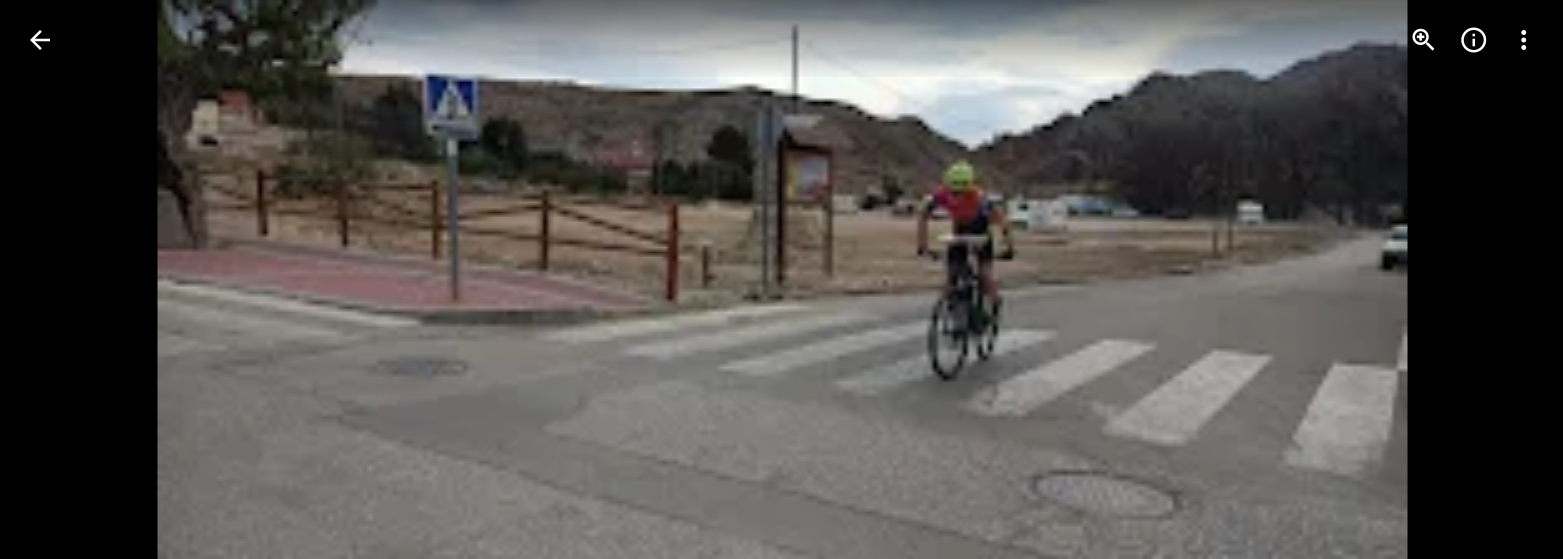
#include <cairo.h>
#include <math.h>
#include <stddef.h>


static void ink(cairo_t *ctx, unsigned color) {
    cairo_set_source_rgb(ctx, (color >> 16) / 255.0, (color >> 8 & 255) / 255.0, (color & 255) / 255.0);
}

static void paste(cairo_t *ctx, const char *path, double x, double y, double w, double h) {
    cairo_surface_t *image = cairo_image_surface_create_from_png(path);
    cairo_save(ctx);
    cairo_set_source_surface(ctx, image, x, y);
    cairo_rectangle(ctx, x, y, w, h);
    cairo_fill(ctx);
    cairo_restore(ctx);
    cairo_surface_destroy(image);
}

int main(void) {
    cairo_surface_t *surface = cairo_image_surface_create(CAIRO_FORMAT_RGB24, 1563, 559);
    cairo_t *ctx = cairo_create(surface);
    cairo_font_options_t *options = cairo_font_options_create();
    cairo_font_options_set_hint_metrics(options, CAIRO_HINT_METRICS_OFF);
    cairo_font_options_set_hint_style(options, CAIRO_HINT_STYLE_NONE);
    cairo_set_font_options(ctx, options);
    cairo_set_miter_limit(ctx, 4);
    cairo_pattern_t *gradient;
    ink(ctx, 0x000000);
    cairo_paint(ctx);
    paste(ctx, "media/5.png", 157, 0, 1251, 559);
    gradient = cairo_pattern_create_linear(782, 0, 782, 80);
    cairo_pattern_add_color_stop_rgba(gradient, 0, 0, 0, 0, 0.6);
    cairo_pattern_add_color_stop_rgba(gradient, 1, 0, 0, 0, 0);
    cairo_set_source(ctx, gradient);
    cairo_pattern_destroy(gradient);
    cairo_rectangle(ctx, 157, 0, 1251, 77);
    cairo_fill(ctx);
    paste(ctx, "media/1.png", 30, 30, 20, 20);
    paste(ctx, "media/2.png", 1412, 28, 23, 23);
    paste(ctx, "media/3.png", 1461, 27, 26, 26);
    paste(ctx, "media/4.png", 1521, 30, 6, 20);
    cairo_surface_write_to_png(surface, "image.png");
    cairo_font_options_destroy(options);
    cairo_destroy(ctx);
    cairo_surface_destroy(surface);
    return 0;
}
